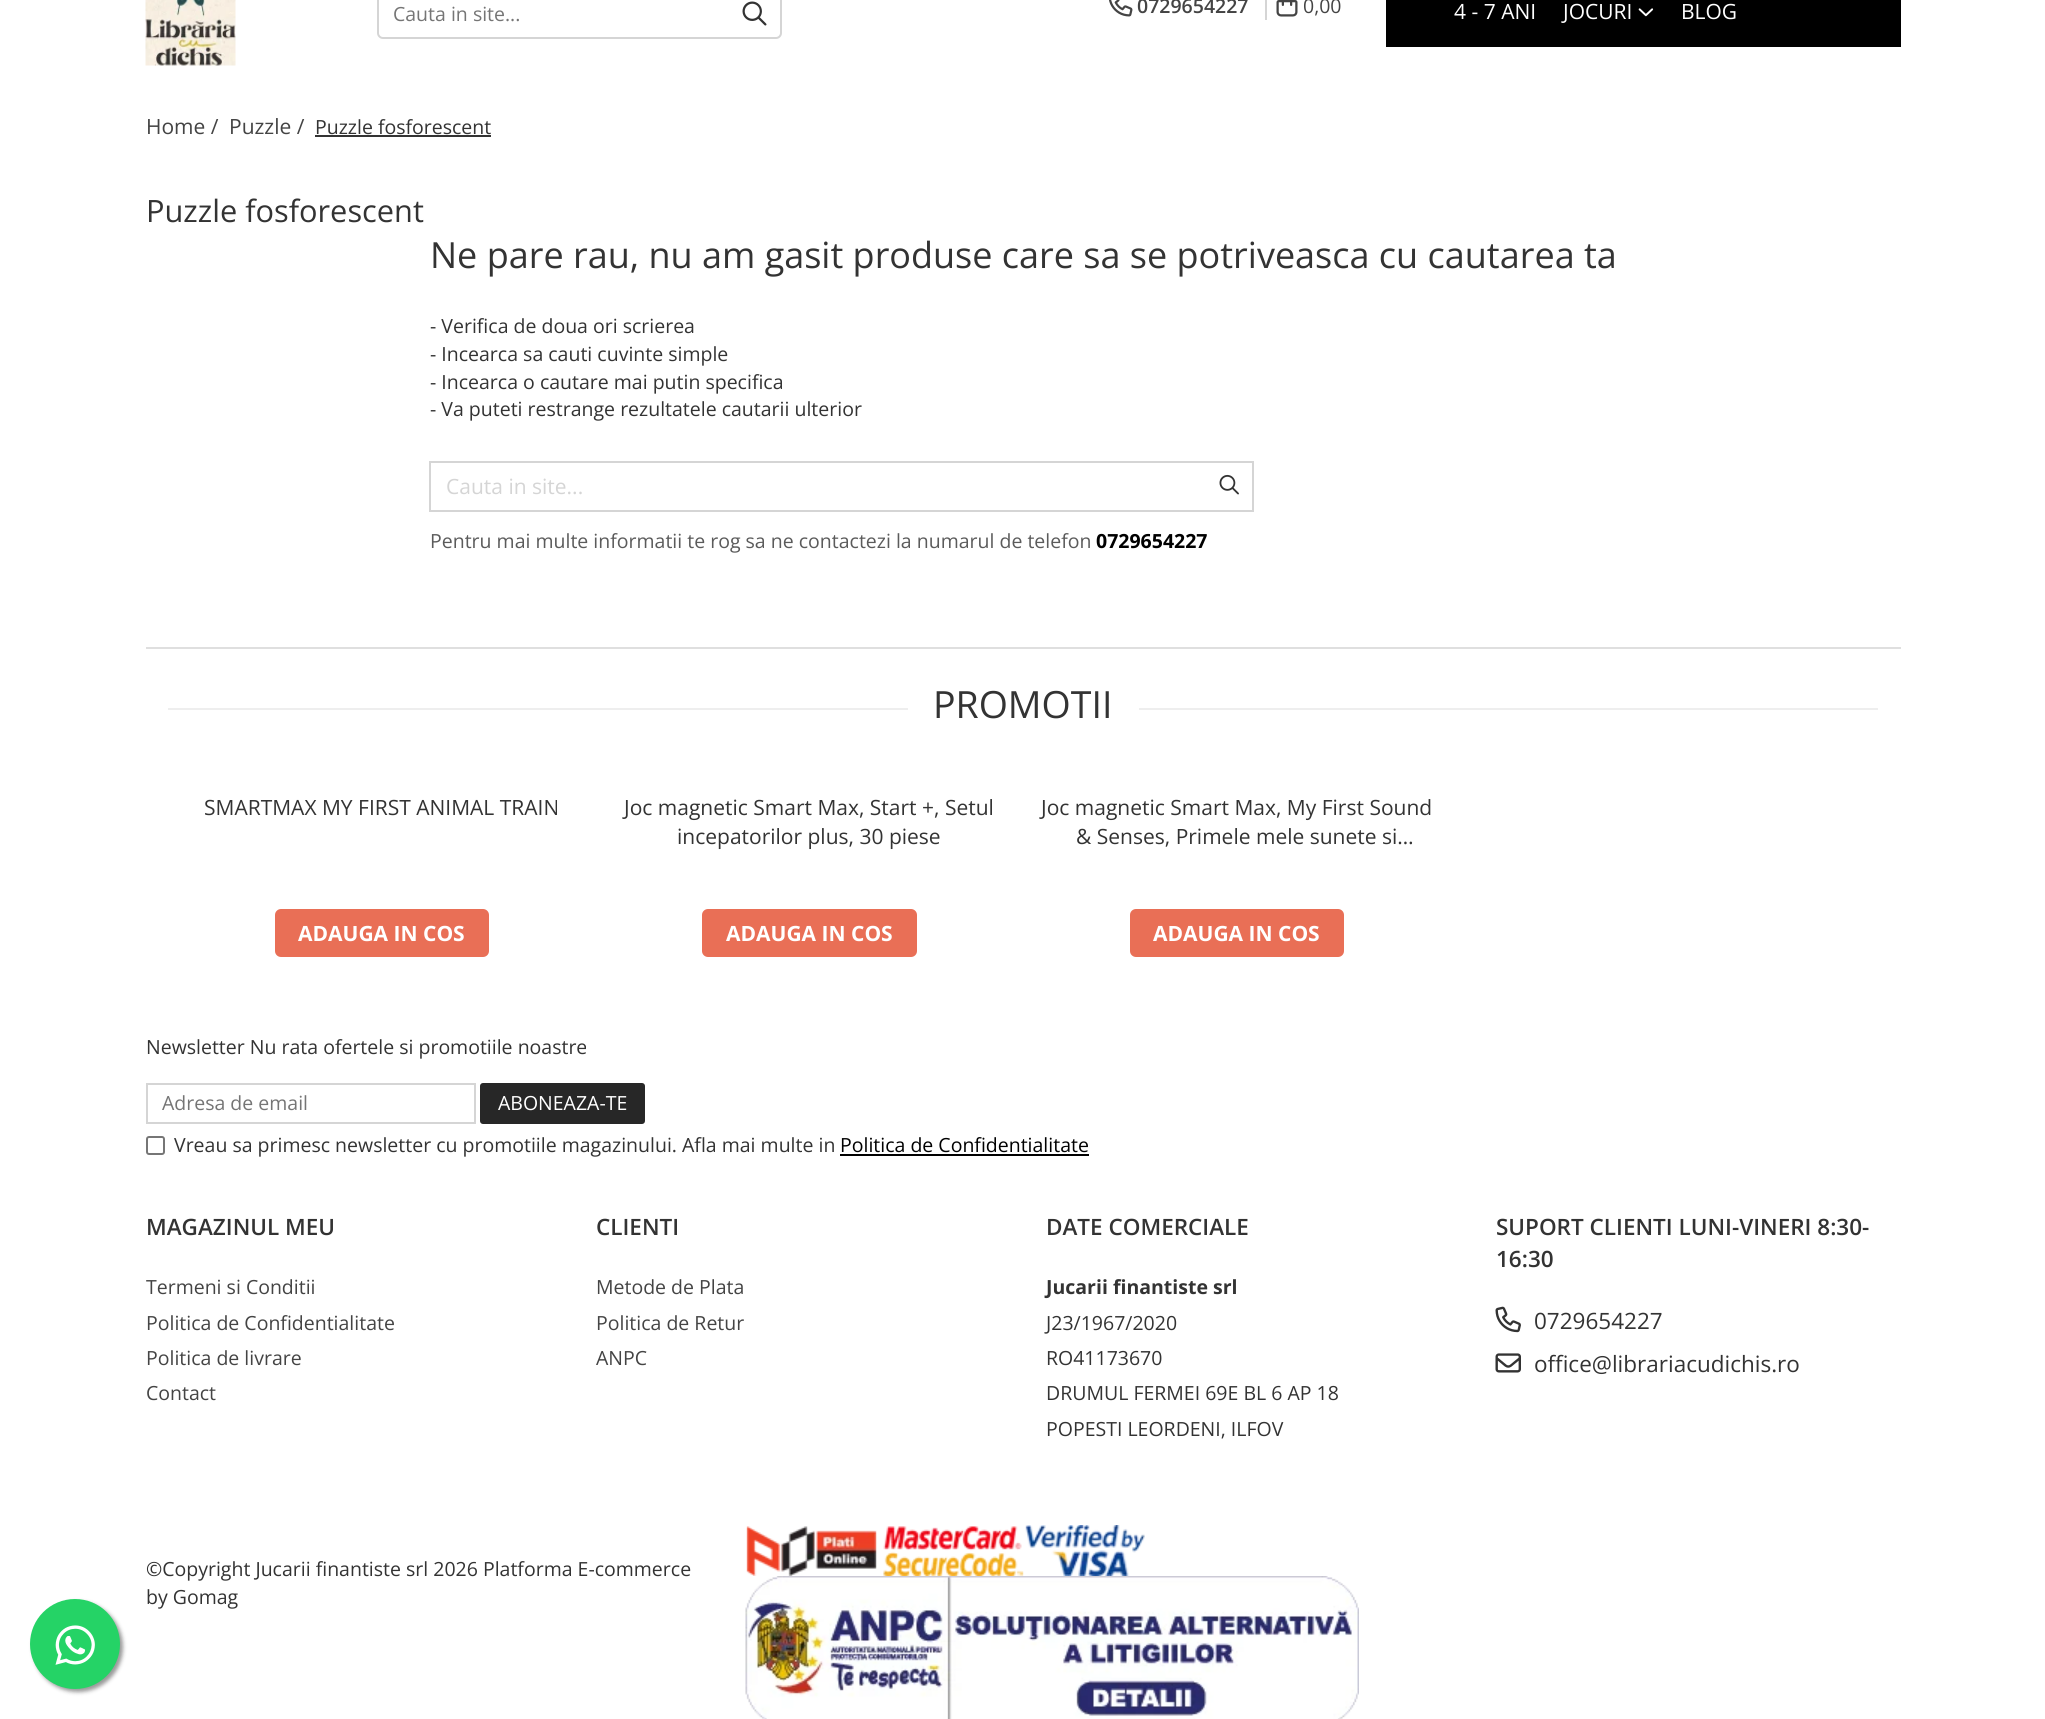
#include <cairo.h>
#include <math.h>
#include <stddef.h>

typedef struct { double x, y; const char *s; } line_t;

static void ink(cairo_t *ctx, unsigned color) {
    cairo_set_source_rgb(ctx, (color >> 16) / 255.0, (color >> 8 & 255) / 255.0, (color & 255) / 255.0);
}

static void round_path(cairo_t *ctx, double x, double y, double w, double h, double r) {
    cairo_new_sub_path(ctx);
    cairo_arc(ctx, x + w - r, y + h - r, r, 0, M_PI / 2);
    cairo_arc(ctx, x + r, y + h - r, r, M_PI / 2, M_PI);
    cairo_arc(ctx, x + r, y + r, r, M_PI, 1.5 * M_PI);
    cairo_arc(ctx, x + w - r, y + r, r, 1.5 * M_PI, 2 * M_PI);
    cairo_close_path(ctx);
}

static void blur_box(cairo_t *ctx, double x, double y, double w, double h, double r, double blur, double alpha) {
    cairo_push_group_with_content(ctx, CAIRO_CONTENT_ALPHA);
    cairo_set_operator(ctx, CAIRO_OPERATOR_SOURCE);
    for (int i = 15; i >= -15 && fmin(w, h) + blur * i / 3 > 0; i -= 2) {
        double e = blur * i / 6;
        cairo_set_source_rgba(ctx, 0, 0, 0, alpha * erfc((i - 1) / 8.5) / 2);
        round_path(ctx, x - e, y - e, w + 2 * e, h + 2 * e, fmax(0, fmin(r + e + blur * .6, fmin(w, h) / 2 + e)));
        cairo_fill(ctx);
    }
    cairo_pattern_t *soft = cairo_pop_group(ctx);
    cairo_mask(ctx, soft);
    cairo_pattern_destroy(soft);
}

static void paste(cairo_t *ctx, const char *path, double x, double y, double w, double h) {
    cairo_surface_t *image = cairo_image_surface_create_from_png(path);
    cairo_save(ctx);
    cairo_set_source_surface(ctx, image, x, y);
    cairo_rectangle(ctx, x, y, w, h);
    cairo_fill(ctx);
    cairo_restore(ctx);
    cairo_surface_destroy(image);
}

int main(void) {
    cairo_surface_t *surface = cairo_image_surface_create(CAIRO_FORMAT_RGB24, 2045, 1719);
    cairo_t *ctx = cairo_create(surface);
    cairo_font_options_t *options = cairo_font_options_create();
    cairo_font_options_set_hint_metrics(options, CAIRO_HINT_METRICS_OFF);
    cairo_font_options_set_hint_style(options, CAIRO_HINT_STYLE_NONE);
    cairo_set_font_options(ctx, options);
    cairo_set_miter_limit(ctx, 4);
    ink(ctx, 0xFFFFFF);
    cairo_paint(ctx);
    paste(ctx, "media/1.png", 145, 0, 91, 66);
    round_path(ctx, 378, -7, 403, 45, 5);
    ink(ctx, 0xD5D5D5);
    cairo_stroke(ctx);
    cairo_select_font_face(ctx, "Open Sans", CAIRO_FONT_SLANT_NORMAL, CAIRO_FONT_WEIGHT_NORMAL);
    cairo_set_font_size(ctx, 19.5);
    ink(ctx, 0x757575);
    cairo_move_to(ctx, 393, 21);
    cairo_show_text(ctx, "Cauta in site...");
    paste(ctx, "media/2.png", 742, 1, 25, 25);
    paste(ctx, "media/3.png", 1109, 0, 24, 17);
    cairo_select_font_face(ctx, "Open Sans SemiBold", CAIRO_FONT_SLANT_NORMAL, CAIRO_FONT_WEIGHT_NORMAL);
    ink(ctx, 0x444444);
    cairo_move_to(ctx, 1137, 13);
    cairo_show_text(ctx, "0729654227");
    ink(ctx, 0xD5D5D5);
    cairo_rectangle(ctx, 1265, 0, 2, 20);
    cairo_fill(ctx);
    paste(ctx, "media/4.png", 1276, 0, 22, 17);
    cairo_select_font_face(ctx, "Open Sans", CAIRO_FONT_SLANT_NORMAL, CAIRO_FONT_WEIGHT_NORMAL);
    ink(ctx, 0x444444);
    cairo_move_to(ctx, 1303, 13);
    cairo_show_text(ctx, "0,00");
    ink(ctx, 0x000000);
    cairo_rectangle(ctx, 1386, 0, 515, 47);
    cairo_fill(ctx);
    cairo_set_font_size(ctx, 21);
    ink(ctx, 0xFFFFFF);
    cairo_move_to(ctx, 1454, 19);
    cairo_show_text(ctx, "4 - 7 ANI");
    cairo_move_to(ctx, 1563, 19);
    cairo_show_text(ctx, "JOCURI");
    paste(ctx, "media/5.png", 1638, 8, 16, 9);
    cairo_move_to(ctx, 1681, 19);
    cairo_show_text(ctx, "BLOG");
    ink(ctx, 0x444444);
    cairo_move_to(ctx, 146, 134);
    cairo_show_text(ctx, "Home /");
    cairo_move_to(ctx, 229, 134);
    cairo_show_text(ctx, "Puzzle /");
    cairo_set_font_size(ctx, 19.5);
    ink(ctx, 0x333333);
    cairo_move_to(ctx, 315, 134);
    cairo_show_text(ctx, "Puzzle fosforescent");
    cairo_rectangle(ctx, 315, 135, 176, 2);
    cairo_fill(ctx);
    cairo_set_font_size(ctx, 30.75);
    cairo_move_to(ctx, 146, 222);
    cairo_show_text(ctx, "Puzzle fosforescent");
    ink(ctx, 0xDFDFDF);
    cairo_rectangle(ctx, 146, 647, 1755, 2);
    cairo_fill(ctx);
    cairo_set_font_size(ctx, 36);
    ink(ctx, 0x333333);
    cairo_move_to(ctx, 430, 268);
    cairo_show_text(ctx, "Ne pare rau, nu am gasit produse care sa se potriveasca cu cautarea ta");
    cairo_set_font_size(ctx, 19.5);
    {
        static const line_t items[] = {
            {430, 333, "- Verifica de doua ori scrierea"},
            {430, 361, "- Incearca sa cauti cuvinte simple"},
            {430, 389, "- Incearca o cautare mai putin specifica"},
            {430, 416, "- Va puteti restrange rezultatele cautarii ulterior"},
        };
        for (size_t i = 0; i < sizeof items / sizeof *items; i++) {
            cairo_move_to(ctx, items[i].x, items[i].y);
            cairo_show_text(ctx, items[i].s);
        }
    }
    cairo_rectangle(ctx, 430, 462, 823, 49);
    ink(ctx, 0xD5D5D5);
    cairo_stroke(ctx);
    cairo_set_font_size(ctx, 21);
    cairo_move_to(ctx, 446, 494);
    cairo_show_text(ctx, "Cauta in site...");
    paste(ctx, "media/6.png", 1219, 474, 20, 21);
    cairo_set_font_size(ctx, 19.5);
    ink(ctx, 0x5B5B5B);
    cairo_move_to(ctx, 430, 548);
    cairo_show_text(ctx, "Pentru mai multe informatii te rog sa ne contactezi la numarul de telefon");
    cairo_select_font_face(ctx, "Open Sans", CAIRO_FONT_SLANT_NORMAL, CAIRO_FONT_WEIGHT_BOLD);
    ink(ctx, 0x000000);
    cairo_move_to(ctx, 1096, 548);
    cairo_show_text(ctx, "0729654227");
    ink(ctx, 0xEEEEEE);
    cairo_rectangle(ctx, 168, 708, 1710, 2);
    cairo_fill(ctx);
    ink(ctx, 0xFFFFFF);
    cairo_rectangle(ctx, 908, 708, 231, 2);
    cairo_fill(ctx);
    cairo_select_font_face(ctx, "Open Sans", CAIRO_FONT_SLANT_NORMAL, CAIRO_FONT_WEIGHT_NORMAL);
    cairo_set_font_size(ctx, 37.5);
    ink(ctx, 0x333333);
    cairo_move_to(ctx, 933, 718);
    cairo_show_text(ctx, "PROMOTII");
    cairo_set_font_size(ctx, 21);
    cairo_move_to(ctx, 204, 815);
    cairo_show_text(ctx, "SMARTMAX MY FIRST ANIMAL TRAIN");
    ink(ctx, 0xE96F56);
    round_path(ctx, 275, 909, 214, 48, 6);
    cairo_fill(ctx);
    cairo_select_font_face(ctx, "Open Sans", CAIRO_FONT_SLANT_NORMAL, CAIRO_FONT_WEIGHT_BOLD);
    ink(ctx, 0xFFFFFF);
    cairo_move_to(ctx, 298, 941);
    cairo_show_text(ctx, "ADAUGA IN COS");
    cairo_select_font_face(ctx, "Open Sans", CAIRO_FONT_SLANT_NORMAL, CAIRO_FONT_WEIGHT_NORMAL);
    ink(ctx, 0x333333);
    cairo_move_to(ctx, 624, 815);
    cairo_show_text(ctx, "Joc magnetic Smart Max, Start +, Setul");
    cairo_move_to(ctx, 677, 844);
    cairo_show_text(ctx, "incepatorilor plus, 30 piese");
    ink(ctx, 0xE96F56);
    round_path(ctx, 702, 909, 215, 48, 6);
    cairo_fill(ctx);
    cairo_select_font_face(ctx, "Open Sans", CAIRO_FONT_SLANT_NORMAL, CAIRO_FONT_WEIGHT_BOLD);
    ink(ctx, 0xFFFFFF);
    cairo_move_to(ctx, 726, 941);
    cairo_show_text(ctx, "ADAUGA IN COS");
    cairo_select_font_face(ctx, "Open Sans", CAIRO_FONT_SLANT_NORMAL, CAIRO_FONT_WEIGHT_NORMAL);
    ink(ctx, 0x333333);
    cairo_move_to(ctx, 1041, 815);
    cairo_show_text(ctx, "Joc magnetic Smart Max, My First Sound");
    cairo_move_to(ctx, 1076, 844);
    cairo_show_text(ctx, "& Senses, Primele mele sunete si…");
    ink(ctx, 0xE96F56);
    round_path(ctx, 1130, 909, 214, 48, 6);
    cairo_fill(ctx);
    cairo_select_font_face(ctx, "Open Sans", CAIRO_FONT_SLANT_NORMAL, CAIRO_FONT_WEIGHT_BOLD);
    ink(ctx, 0xFFFFFF);
    cairo_move_to(ctx, 1153, 941);
    cairo_show_text(ctx, "ADAUGA IN COS");
    cairo_select_font_face(ctx, "Open Sans", CAIRO_FONT_SLANT_NORMAL, CAIRO_FONT_WEIGHT_NORMAL);
    cairo_set_font_size(ctx, 19.5);
    ink(ctx, 0x333333);
    cairo_move_to(ctx, 146, 1054);
    cairo_show_text(ctx, "Newsletter Nu rata ofertele si promotiile noastre");
    cairo_rectangle(ctx, 147, 1084, 328, 39);
    ink(ctx, 0xD5D5D5);
    cairo_stroke(ctx);
    ink(ctx, 0x757575);
    cairo_move_to(ctx, 162, 1110);
    cairo_show_text(ctx, "Adresa de email");
    ink(ctx, 0x272727);
    round_path(ctx, 480, 1083, 165, 41, 3);
    cairo_fill(ctx);
    ink(ctx, 0xFFFFFF);
    cairo_move_to(ctx, 498, 1110);
    cairo_show_text(ctx, "ABONEAZA-TE");
    round_path(ctx, 147, 1137, 17, 17, 2);
    ink(ctx, 0x767676);
    cairo_stroke(ctx);
    ink(ctx, 0x333333);
    cairo_move_to(ctx, 174, 1152);
    cairo_show_text(ctx, "Vreau sa primesc newsletter cu promotiile magazinului. Afla mai multe in");
    ink(ctx, 0x000000);
    cairo_move_to(ctx, 840, 1152);
    cairo_show_text(ctx, "Politica de Confidentialitate");
    cairo_rectangle(ctx, 840, 1154, 249, 2);
    cairo_fill(ctx);
    cairo_select_font_face(ctx, "Open Sans SemiBold", CAIRO_FONT_SLANT_NORMAL, CAIRO_FONT_WEIGHT_NORMAL);
    cairo_set_font_size(ctx, 22.5);
    ink(ctx, 0x333333);
    cairo_move_to(ctx, 146, 1235);
    cairo_show_text(ctx, "MAGAZINUL MEU");
    cairo_select_font_face(ctx, "Open Sans", CAIRO_FONT_SLANT_NORMAL, CAIRO_FONT_WEIGHT_NORMAL);
    cairo_set_font_size(ctx, 19.5);
    ink(ctx, 0x444444);
    {
        static const line_t items[] = {
            {146, 1294, "Termeni si Conditii"},
            {146, 1330, "Politica de Confidentialitate"},
            {146, 1365, "Politica de livrare"},
            {146, 1400, "Contact"},
        };
        for (size_t i = 0; i < sizeof items / sizeof *items; i++) {
            cairo_move_to(ctx, items[i].x, items[i].y);
            cairo_show_text(ctx, items[i].s);
        }
    }
    cairo_select_font_face(ctx, "Open Sans SemiBold", CAIRO_FONT_SLANT_NORMAL, CAIRO_FONT_WEIGHT_NORMAL);
    cairo_set_font_size(ctx, 22.5);
    ink(ctx, 0x333333);
    cairo_move_to(ctx, 596, 1235);
    cairo_show_text(ctx, "CLIENTI");
    cairo_select_font_face(ctx, "Open Sans", CAIRO_FONT_SLANT_NORMAL, CAIRO_FONT_WEIGHT_NORMAL);
    cairo_set_font_size(ctx, 19.5);
    ink(ctx, 0x444444);
    {
        static const line_t items[] = {
            {596, 1294, "Metode de Plata"},
            {596, 1330, "Politica de Retur"},
            {596, 1365, "ANPC"},
        };
        for (size_t i = 0; i < sizeof items / sizeof *items; i++) {
            cairo_move_to(ctx, items[i].x, items[i].y);
            cairo_show_text(ctx, items[i].s);
        }
    }
    cairo_select_font_face(ctx, "Open Sans SemiBold", CAIRO_FONT_SLANT_NORMAL, CAIRO_FONT_WEIGHT_NORMAL);
    cairo_set_font_size(ctx, 22.5);
    ink(ctx, 0x333333);
    cairo_move_to(ctx, 1046, 1235);
    cairo_show_text(ctx, "DATE COMERCIALE");
    cairo_select_font_face(ctx, "Open Sans", CAIRO_FONT_SLANT_NORMAL, CAIRO_FONT_WEIGHT_BOLD);
    cairo_set_font_size(ctx, 19.5);
    cairo_move_to(ctx, 1046, 1294);
    cairo_show_text(ctx, "Jucarii finantiste srl");
    cairo_select_font_face(ctx, "Open Sans", CAIRO_FONT_SLANT_NORMAL, CAIRO_FONT_WEIGHT_NORMAL);
    {
        static const line_t items[] = {
            {1046, 1330, "J23/1967/2020"},
            {1046, 1365, "RO41173670"},
            {1046, 1400, "DRUMUL FERMEI 69E BL 6 AP 18"},
            {1046, 1436, "POPESTI LEORDENI, ILFOV"},
        };
        for (size_t i = 0; i < sizeof items / sizeof *items; i++) {
            cairo_move_to(ctx, items[i].x, items[i].y);
            cairo_show_text(ctx, items[i].s);
        }
    }
    cairo_select_font_face(ctx, "Open Sans SemiBold", CAIRO_FONT_SLANT_NORMAL, CAIRO_FONT_WEIGHT_NORMAL);
    cairo_set_font_size(ctx, 22.5);
    cairo_move_to(ctx, 1496, 1235);
    cairo_show_text(ctx, "SUPORT CLIENTI LUNI-VINERI 8:30-");
    cairo_move_to(ctx, 1496, 1267);
    cairo_show_text(ctx, "16:30");
    paste(ctx, "media/7.png", 1495, 1306, 26, 27);
    cairo_select_font_face(ctx, "Open Sans", CAIRO_FONT_SLANT_NORMAL, CAIRO_FONT_WEIGHT_NORMAL);
    cairo_move_to(ctx, 1534, 1329);
    cairo_show_text(ctx, "0729654227");
    paste(ctx, "media/8.png", 1495, 1353, 26, 20);
    cairo_move_to(ctx, 1534, 1372);
    cairo_show_text(ctx, "office@librariacudichis.ro");
    cairo_set_font_size(ctx, 19.5);
    cairo_move_to(ctx, 146, 1576);
    cairo_show_text(ctx, "©Copyright Jucarii finantiste srl 2026 Platforma E-commerce");
    cairo_move_to(ctx, 146, 1604);
    cairo_show_text(ctx, "by Gomag");
    paste(ctx, "media/9.png", 746, 1525, 399, 51);
    paste(ctx, "media/10.png", 745, 1576, 614, 143);
    ink(ctx, 0x999999);
    blur_box(ctx, 33, 1602, 90, 90, 45, 2, 1);
    ink(ctx, 0x25D366);
    cairo_arc(ctx, 75, 1644, 45, 0, 2 * M_PI);
    cairo_fill(ctx);
    paste(ctx, "media/11.png", 55, 1625, 40, 40);
    cairo_surface_write_to_png(surface, "image.png");
    cairo_font_options_destroy(options);
    cairo_destroy(ctx);
    cairo_surface_destroy(surface);
    return 0;
}
